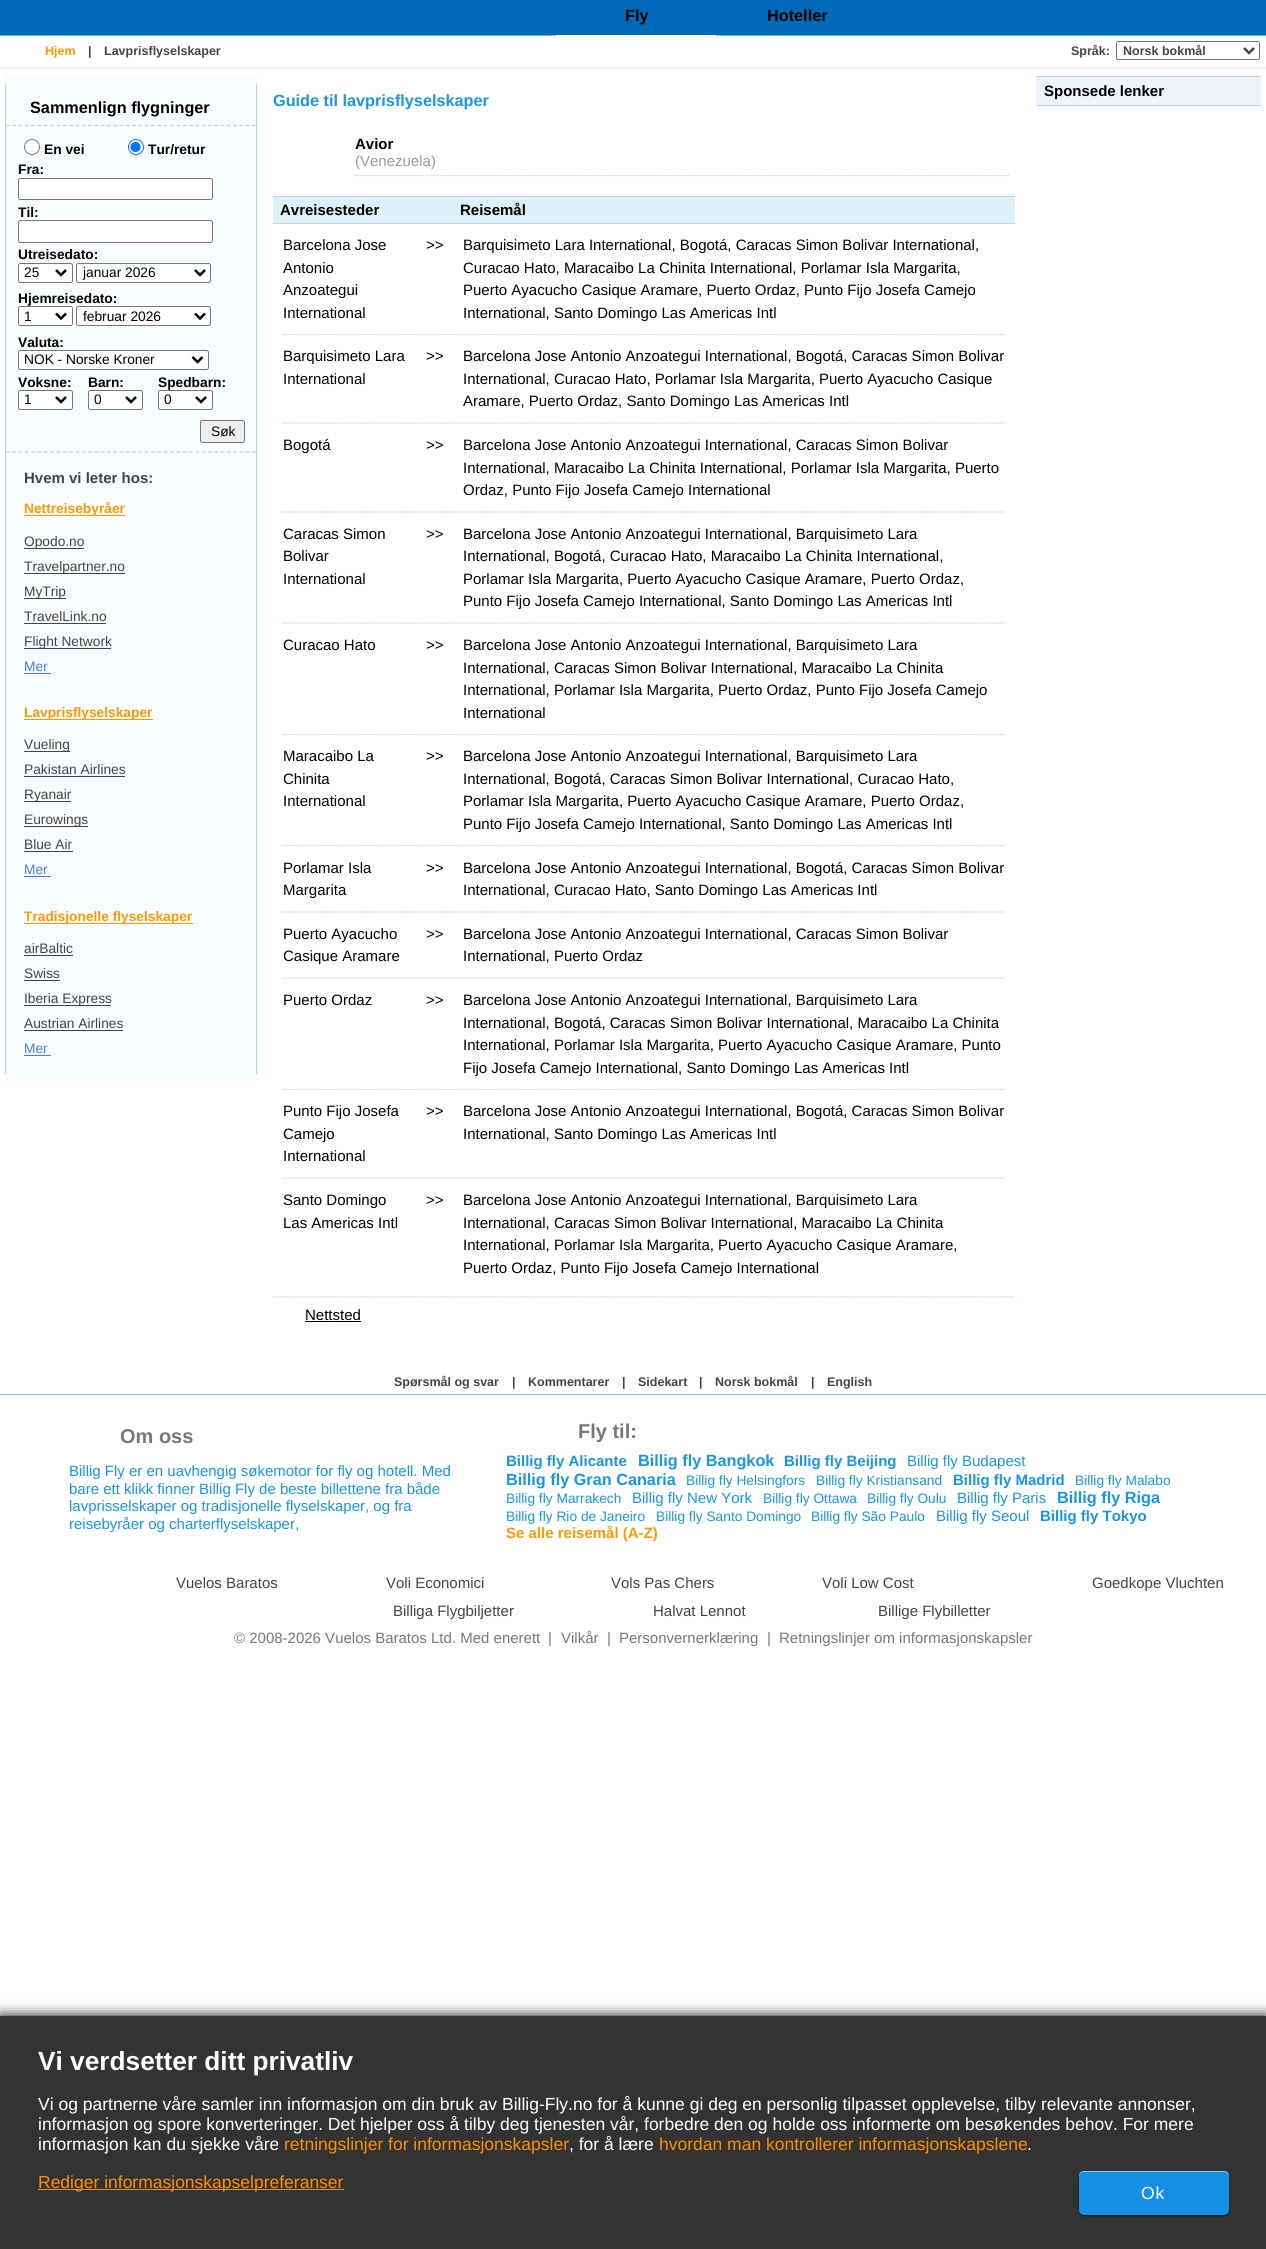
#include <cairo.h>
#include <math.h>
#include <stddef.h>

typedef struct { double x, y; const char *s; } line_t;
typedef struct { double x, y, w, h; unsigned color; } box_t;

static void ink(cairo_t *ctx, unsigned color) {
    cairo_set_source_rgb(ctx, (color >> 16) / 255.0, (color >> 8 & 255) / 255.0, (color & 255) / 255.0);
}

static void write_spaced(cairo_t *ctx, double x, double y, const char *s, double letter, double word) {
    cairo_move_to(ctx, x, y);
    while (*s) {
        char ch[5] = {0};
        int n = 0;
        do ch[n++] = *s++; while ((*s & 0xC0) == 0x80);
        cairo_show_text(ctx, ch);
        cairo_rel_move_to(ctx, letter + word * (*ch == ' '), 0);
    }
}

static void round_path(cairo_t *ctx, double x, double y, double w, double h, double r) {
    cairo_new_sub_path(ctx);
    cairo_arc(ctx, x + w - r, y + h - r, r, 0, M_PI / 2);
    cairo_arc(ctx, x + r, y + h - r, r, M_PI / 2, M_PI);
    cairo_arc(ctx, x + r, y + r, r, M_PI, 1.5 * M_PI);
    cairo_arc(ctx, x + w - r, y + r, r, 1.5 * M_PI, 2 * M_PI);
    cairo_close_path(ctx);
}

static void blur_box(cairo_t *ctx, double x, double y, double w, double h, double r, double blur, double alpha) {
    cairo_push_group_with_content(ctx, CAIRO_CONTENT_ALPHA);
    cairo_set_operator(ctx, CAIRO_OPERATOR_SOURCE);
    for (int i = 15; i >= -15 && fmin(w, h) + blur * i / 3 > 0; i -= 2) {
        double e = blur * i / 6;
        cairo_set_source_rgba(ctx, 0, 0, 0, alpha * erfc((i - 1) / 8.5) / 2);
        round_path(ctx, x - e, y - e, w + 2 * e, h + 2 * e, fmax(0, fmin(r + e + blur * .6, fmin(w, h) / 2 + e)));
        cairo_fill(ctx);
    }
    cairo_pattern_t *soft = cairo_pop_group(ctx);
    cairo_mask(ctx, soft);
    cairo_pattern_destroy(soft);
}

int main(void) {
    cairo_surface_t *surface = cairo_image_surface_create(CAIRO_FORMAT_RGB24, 1266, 2249);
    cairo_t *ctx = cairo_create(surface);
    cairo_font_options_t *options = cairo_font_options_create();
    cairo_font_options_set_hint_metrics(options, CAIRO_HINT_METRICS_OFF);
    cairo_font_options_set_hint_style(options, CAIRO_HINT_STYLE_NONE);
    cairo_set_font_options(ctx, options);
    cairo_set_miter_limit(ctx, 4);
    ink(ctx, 0xFFFFFF);
    cairo_paint(ctx);
    ink(ctx, 0x006AB8);
    cairo_rectangle(ctx, 0, 0, 1266, 35);
    cairo_fill(ctx);
    cairo_select_font_face(ctx, "Liberation Sans", CAIRO_FONT_SLANT_NORMAL, CAIRO_FONT_WEIGHT_BOLD);
    cairo_set_font_size(ctx, 16.25);
    ink(ctx, 0x000000);
    cairo_move_to(ctx, 625, 21);
    cairo_show_text(ctx, "Fly");
    ink(ctx, 0x6FB3FE);
    cairo_rectangle(ctx, 716, 35, 550, 1);
    cairo_fill(ctx);
    ink(ctx, 0x000000);
    cairo_move_to(ctx, 767, 21);
    cairo_show_text(ctx, "Hoteller");
    ink(ctx, 0x6FB3FE);
    cairo_rectangle(ctx, 0, 35, 556, 1);
    cairo_fill(ctx);
    cairo_new_path(ctx);
    cairo_move_to(ctx, 0, 68);
    cairo_line_to(ctx, 1266, 68);
    ink(ctx, 0xBAD0F7);
    cairo_set_line_width(ctx, 1.2);
    cairo_set_dash(ctx, (double[]){1.25, 1.25}, 2, 0);
    cairo_stroke(ctx);
    cairo_set_font_size(ctx, 12.5);
    ink(ctx, 0xFF9900);
    cairo_move_to(ctx, 45, 55);
    cairo_show_text(ctx, "Hjem");
    ink(ctx, 0x444444);
    {
        static const line_t items[] = {
            {88, 55, "|"},
            {104, 55, "Lavprisflyselskaper"},
            {1071, 55, "Språk:"},
        };
        for (size_t i = 0; i < sizeof items / sizeof *items; i++) {
            cairo_move_to(ctx, items[i].x, items[i].y);
            cairo_show_text(ctx, items[i].s);
        }
    }
    round_path(ctx, 1116.5, 41.5, 143, 18, 2);
    ink(ctx, 0x767676);
    cairo_set_line_width(ctx, 1);
    cairo_set_dash(ctx, NULL, 0, 0);
    cairo_stroke(ctx);
    cairo_new_path(ctx);
    cairo_move_to(ctx, 1244, 48);
    cairo_line_to(ctx, 1249, 53);
    cairo_line_to(ctx, 1254, 48);
    ink(ctx, 0x444444);
    cairo_set_line_width(ctx, 2.5);
    cairo_stroke(ctx);
    cairo_move_to(ctx, 1123, 55);
    cairo_show_text(ctx, "Norsk bokmål");
    {
        static const box_t items[] = {
            {1036, 77, 225, 28, 0xEDF3F7},
            {1036, 76, 225, 1, 0xBBD1F7},
            {1036, 105, 225, 1, 0xBBD1F7},
        };
        for (size_t i = 0; i < sizeof items / sizeof *items; i++) {
            ink(ctx, items[i].color);
            cairo_rectangle(ctx, items[i].x, items[i].y, items[i].w, items[i].h);
            cairo_fill(ctx);
        }
    }
    cairo_set_font_size(ctx, 15);
    ink(ctx, 0x000000);
    cairo_move_to(ctx, 1044, 96);
    cairo_show_text(ctx, "Sponsede lenker");
    {
        static const box_t items[] = {
            {5, 76, 253, 1005, 0xF9FCFE},
            {256, 84, 1, 990, 0xBAD0F7},
            {5, 84, 1, 990, 0xBAD0F7},
        };
        for (size_t i = 0; i < sizeof items / sizeof *items; i++) {
            ink(ctx, items[i].color);
            cairo_rectangle(ctx, items[i].x, items[i].y, items[i].w, items[i].h);
            cairo_fill(ctx);
        }
    }
    cairo_new_path(ctx);
    cairo_move_to(ctx, 6, 125.5);
    cairo_line_to(ctx, 256, 125.5);
    ink(ctx, 0xBBD1F7);
    cairo_set_line_width(ctx, 1.2);
    cairo_set_dash(ctx, (double[]){3.75, 2.56}, 2, 0);
    cairo_stroke(ctx);
    cairo_set_font_size(ctx, 16.25);
    ink(ctx, 0x000000);
    cairo_move_to(ctx, 30, 113);
    cairo_show_text(ctx, "Sammenlign flygninger");
    cairo_new_path(ctx);
    cairo_move_to(ctx, 6, 452);
    cairo_line_to(ctx, 256, 452);
    ink(ctx, 0xBBD1F7);
    cairo_stroke(ctx);
    ink(ctx, 0xFFFFFF);
    cairo_arc(ctx, 32, 147, 7.5, 0, 2 * M_PI);
    cairo_fill_preserve(ctx);
    ink(ctx, 0x767676);
    cairo_set_line_width(ctx, 1);
    cairo_set_dash(ctx, NULL, 0, 0);
    cairo_stroke(ctx);
    cairo_set_font_size(ctx, 13.75);
    ink(ctx, 0x000000);
    cairo_move_to(ctx, 44, 154);
    cairo_show_text(ctx, "En vei");
    ink(ctx, 0xFFFFFF);
    cairo_new_path(ctx);
    cairo_arc(ctx, 136, 147, 7.5, 0, 2 * M_PI);
    cairo_fill_preserve(ctx);
    ink(ctx, 0x0075FF);
    cairo_stroke(ctx);
    cairo_arc(ctx, 135.5, 147, 5, 0, 2 * M_PI);
    cairo_fill(ctx);
    ink(ctx, 0x000000);
    cairo_move_to(ctx, 148, 154);
    cairo_show_text(ctx, "Tur/retur");
    cairo_move_to(ctx, 18, 174);
    cairo_show_text(ctx, "Fra:");
    ink(ctx, 0xFFFFFF);
    round_path(ctx, 18.5, 178.5, 194, 21, 2);
    cairo_fill_preserve(ctx);
    ink(ctx, 0x767676);
    cairo_stroke(ctx);
    ink(ctx, 0x000000);
    cairo_move_to(ctx, 18, 217);
    cairo_show_text(ctx, "Til:");
    ink(ctx, 0xFFFFFF);
    round_path(ctx, 18.5, 220.5, 194, 22, 2);
    cairo_fill_preserve(ctx);
    ink(ctx, 0x767676);
    cairo_stroke(ctx);
    ink(ctx, 0x000000);
    cairo_move_to(ctx, 18, 259);
    cairo_show_text(ctx, "Utreisedato:");
    ink(ctx, 0xFFFFFF);
    round_path(ctx, 18.5, 263.5, 54, 19, 2);
    cairo_fill_preserve(ctx);
    ink(ctx, 0x767676);
    cairo_stroke(ctx);
    cairo_new_path(ctx);
    cairo_move_to(ctx, 56, 270);
    cairo_line_to(ctx, 61, 275);
    cairo_line_to(ctx, 66, 270);
    ink(ctx, 0x000000);
    cairo_set_line_width(ctx, 2.5);
    cairo_stroke(ctx);
    cairo_select_font_face(ctx, "Liberation Sans", CAIRO_FONT_SLANT_NORMAL, CAIRO_FONT_WEIGHT_NORMAL);
    cairo_move_to(ctx, 24, 277);
    cairo_show_text(ctx, "25");
    ink(ctx, 0xFFFFFF);
    round_path(ctx, 76.5, 263.5, 134, 19, 2);
    cairo_fill_preserve(ctx);
    ink(ctx, 0x767676);
    cairo_set_line_width(ctx, 1);
    cairo_stroke(ctx);
    cairo_new_path(ctx);
    cairo_move_to(ctx, 195, 270);
    cairo_line_to(ctx, 200, 275);
    cairo_line_to(ctx, 205, 270);
    ink(ctx, 0x000000);
    cairo_set_line_width(ctx, 2.5);
    cairo_stroke(ctx);
    cairo_move_to(ctx, 83, 277);
    cairo_show_text(ctx, "januar 2026");
    cairo_select_font_face(ctx, "Liberation Sans", CAIRO_FONT_SLANT_NORMAL, CAIRO_FONT_WEIGHT_BOLD);
    cairo_move_to(ctx, 18, 303);
    cairo_show_text(ctx, "Hjemreisedato:");
    ink(ctx, 0xFFFFFF);
    round_path(ctx, 18.5, 306.5, 54, 19, 2);
    cairo_fill_preserve(ctx);
    ink(ctx, 0x767676);
    cairo_set_line_width(ctx, 1);
    cairo_stroke(ctx);
    cairo_new_path(ctx);
    cairo_move_to(ctx, 56, 313.5);
    cairo_line_to(ctx, 61, 318.5);
    cairo_line_to(ctx, 66, 313.5);
    ink(ctx, 0x000000);
    cairo_set_line_width(ctx, 2.5);
    cairo_stroke(ctx);
    cairo_select_font_face(ctx, "Liberation Sans", CAIRO_FONT_SLANT_NORMAL, CAIRO_FONT_WEIGHT_NORMAL);
    cairo_move_to(ctx, 24, 321);
    cairo_show_text(ctx, "1");
    ink(ctx, 0xFFFFFF);
    round_path(ctx, 76.5, 306.5, 134, 19, 2);
    cairo_fill_preserve(ctx);
    ink(ctx, 0x767676);
    cairo_set_line_width(ctx, 1);
    cairo_stroke(ctx);
    cairo_new_path(ctx);
    cairo_move_to(ctx, 195, 313.5);
    cairo_line_to(ctx, 200, 318.5);
    cairo_line_to(ctx, 205, 313.5);
    ink(ctx, 0x000000);
    cairo_set_line_width(ctx, 2.5);
    cairo_stroke(ctx);
    cairo_move_to(ctx, 83, 321);
    cairo_show_text(ctx, "februar 2026");
    cairo_select_font_face(ctx, "Liberation Sans", CAIRO_FONT_SLANT_NORMAL, CAIRO_FONT_WEIGHT_BOLD);
    cairo_move_to(ctx, 18, 347);
    cairo_show_text(ctx, "Valuta:");
    ink(ctx, 0xFFFFFF);
    round_path(ctx, 18.5, 350.5, 190, 19, 2);
    cairo_fill_preserve(ctx);
    ink(ctx, 0x767676);
    cairo_set_line_width(ctx, 1);
    cairo_stroke(ctx);
    cairo_new_path(ctx);
    cairo_move_to(ctx, 192.5, 357);
    cairo_line_to(ctx, 197.5, 362);
    cairo_line_to(ctx, 202.5, 357);
    ink(ctx, 0x000000);
    cairo_set_line_width(ctx, 2.5);
    cairo_stroke(ctx);
    cairo_select_font_face(ctx, "Liberation Sans", CAIRO_FONT_SLANT_NORMAL, CAIRO_FONT_WEIGHT_NORMAL);
    cairo_move_to(ctx, 24, 364);
    cairo_show_text(ctx, "NOK - Norske Kroner");
    cairo_select_font_face(ctx, "Liberation Sans", CAIRO_FONT_SLANT_NORMAL, CAIRO_FONT_WEIGHT_BOLD);
    cairo_move_to(ctx, 18, 387);
    cairo_show_text(ctx, "Voksne:");
    ink(ctx, 0xFFFFFF);
    round_path(ctx, 18.5, 390.5, 54, 19, 2);
    cairo_fill_preserve(ctx);
    ink(ctx, 0x767676);
    cairo_set_line_width(ctx, 1);
    cairo_stroke(ctx);
    cairo_new_path(ctx);
    cairo_move_to(ctx, 56, 397);
    cairo_line_to(ctx, 61, 402);
    cairo_line_to(ctx, 66, 397);
    ink(ctx, 0x000000);
    cairo_set_line_width(ctx, 2.5);
    cairo_stroke(ctx);
    cairo_select_font_face(ctx, "Liberation Sans", CAIRO_FONT_SLANT_NORMAL, CAIRO_FONT_WEIGHT_NORMAL);
    cairo_move_to(ctx, 24, 404);
    cairo_show_text(ctx, "1");
    cairo_select_font_face(ctx, "Liberation Sans", CAIRO_FONT_SLANT_NORMAL, CAIRO_FONT_WEIGHT_BOLD);
    cairo_move_to(ctx, 88, 387);
    cairo_show_text(ctx, "Barn:");
    ink(ctx, 0xFFFFFF);
    round_path(ctx, 88.5, 390.5, 54, 19, 2);
    cairo_fill_preserve(ctx);
    ink(ctx, 0x767676);
    cairo_set_line_width(ctx, 1);
    cairo_stroke(ctx);
    cairo_new_path(ctx);
    cairo_move_to(ctx, 126, 397);
    cairo_line_to(ctx, 131, 402);
    cairo_line_to(ctx, 136, 397);
    ink(ctx, 0x000000);
    cairo_set_line_width(ctx, 2.5);
    cairo_stroke(ctx);
    cairo_select_font_face(ctx, "Liberation Sans", CAIRO_FONT_SLANT_NORMAL, CAIRO_FONT_WEIGHT_NORMAL);
    cairo_move_to(ctx, 94, 404);
    cairo_show_text(ctx, "0");
    cairo_select_font_face(ctx, "Liberation Sans", CAIRO_FONT_SLANT_NORMAL, CAIRO_FONT_WEIGHT_BOLD);
    cairo_move_to(ctx, 158, 387);
    cairo_show_text(ctx, "Spedbarn:");
    ink(ctx, 0xFFFFFF);
    round_path(ctx, 158.5, 390.5, 54, 19, 2);
    cairo_fill_preserve(ctx);
    ink(ctx, 0x767676);
    cairo_set_line_width(ctx, 1);
    cairo_stroke(ctx);
    cairo_new_path(ctx);
    cairo_move_to(ctx, 196, 397);
    cairo_line_to(ctx, 201, 402);
    cairo_line_to(ctx, 206, 397);
    ink(ctx, 0x000000);
    cairo_set_line_width(ctx, 2.5);
    cairo_stroke(ctx);
    cairo_select_font_face(ctx, "Liberation Sans", CAIRO_FONT_SLANT_NORMAL, CAIRO_FONT_WEIGHT_NORMAL);
    cairo_move_to(ctx, 164, 404);
    cairo_show_text(ctx, "0");
    ink(ctx, 0xEFEFEF);
    round_path(ctx, 200.5, 420.5, 44, 22, 2);
    cairo_fill_preserve(ctx);
    ink(ctx, 0x767676);
    cairo_set_line_width(ctx, 1);
    cairo_stroke(ctx);
    ink(ctx, 0x000000);
    cairo_move_to(ctx, 211, 436);
    cairo_show_text(ctx, "Søk");
    cairo_select_font_face(ctx, "Liberation Sans", CAIRO_FONT_SLANT_NORMAL, CAIRO_FONT_WEIGHT_BOLD);
    cairo_set_font_size(ctx, 15);
    ink(ctx, 0x444444);
    cairo_move_to(ctx, 24, 483);
    cairo_show_text(ctx, "Hvem vi leter hos:");
    ink(ctx, 0xFF9900);
    cairo_rectangle(ctx, 24, 515, 101, 1);
    cairo_fill(ctx);
    cairo_set_font_size(ctx, 13.75);
    cairo_move_to(ctx, 24, 513);
    cairo_show_text(ctx, "Nettreisebyråer");
    ink(ctx, 0x444444);
    cairo_rectangle(ctx, 24, 548, 60, 1);
    cairo_fill(ctx);
    cairo_select_font_face(ctx, "Liberation Sans", CAIRO_FONT_SLANT_NORMAL, CAIRO_FONT_WEIGHT_NORMAL);
    cairo_move_to(ctx, 24, 546);
    cairo_show_text(ctx, "Opodo.no");
    cairo_rectangle(ctx, 24, 573, 101, 1);
    cairo_fill(ctx);
    cairo_move_to(ctx, 24, 571);
    cairo_show_text(ctx, "Travelpartner.no");
    cairo_rectangle(ctx, 24, 598, 42, 1);
    cairo_fill(ctx);
    cairo_move_to(ctx, 24, 596);
    cairo_show_text(ctx, "MyTrip");
    cairo_move_to(ctx, 24, 621);
    cairo_show_text(ctx, "TravelLink.no");
    cairo_rectangle(ctx, 24, 623, 82, 1);
    cairo_fill(ctx);
    cairo_rectangle(ctx, 24, 648, 87, 1);
    cairo_fill(ctx);
    cairo_move_to(ctx, 24, 646);
    cairo_show_text(ctx, "Flight Network");
    ink(ctx, 0x4781DE);
    cairo_move_to(ctx, 24, 671);
    cairo_show_text(ctx, "Mer");
    cairo_rectangle(ctx, 24, 673, 27, 1);
    cairo_fill(ctx);
    ink(ctx, 0xFF9900);
    cairo_rectangle(ctx, 24, 719, 129, 1);
    cairo_fill(ctx);
    cairo_select_font_face(ctx, "Liberation Sans", CAIRO_FONT_SLANT_NORMAL, CAIRO_FONT_WEIGHT_BOLD);
    cairo_move_to(ctx, 24, 717);
    cairo_show_text(ctx, "Lavprisflyselskaper");
    ink(ctx, 0x444444);
    cairo_rectangle(ctx, 24, 751, 46, 1);
    cairo_fill(ctx);
    cairo_select_font_face(ctx, "Liberation Sans", CAIRO_FONT_SLANT_NORMAL, CAIRO_FONT_WEIGHT_NORMAL);
    cairo_move_to(ctx, 24, 749);
    cairo_show_text(ctx, "Vueling");
    cairo_move_to(ctx, 24, 774);
    cairo_show_text(ctx, "Pakistan Airlines");
    cairo_rectangle(ctx, 24, 776, 101, 1);
    cairo_fill(ctx);
    cairo_rectangle(ctx, 24, 801, 47, 1);
    cairo_fill(ctx);
    cairo_move_to(ctx, 24, 799);
    cairo_show_text(ctx, "Ryanair");
    cairo_rectangle(ctx, 24, 826, 64, 1);
    cairo_fill(ctx);
    cairo_move_to(ctx, 24, 824);
    cairo_show_text(ctx, "Eurowings");
    cairo_move_to(ctx, 24, 849);
    cairo_show_text(ctx, "Blue Air");
    cairo_rectangle(ctx, 24, 851, 49, 1);
    cairo_fill(ctx);
    ink(ctx, 0x4781DE);
    cairo_move_to(ctx, 24, 874);
    cairo_show_text(ctx, "Mer");
    cairo_rectangle(ctx, 24, 876, 27, 1);
    cairo_fill(ctx);
    ink(ctx, 0xFF9900);
    cairo_rectangle(ctx, 24, 923, 169, 1);
    cairo_fill(ctx);
    cairo_select_font_face(ctx, "Liberation Sans", CAIRO_FONT_SLANT_NORMAL, CAIRO_FONT_WEIGHT_BOLD);
    cairo_move_to(ctx, 24, 921);
    cairo_show_text(ctx, "Tradisjonelle flyselskaper");
    cairo_select_font_face(ctx, "Liberation Sans", CAIRO_FONT_SLANT_NORMAL, CAIRO_FONT_WEIGHT_NORMAL);
    ink(ctx, 0x444444);
    cairo_move_to(ctx, 24, 953);
    cairo_show_text(ctx, "airBaltic");
    cairo_rectangle(ctx, 24, 955, 49, 1);
    cairo_fill(ctx);
    cairo_move_to(ctx, 24, 978);
    cairo_show_text(ctx, "Swiss");
    cairo_rectangle(ctx, 24, 980, 36, 1);
    cairo_fill(ctx);
    cairo_rectangle(ctx, 24, 1005, 87, 1);
    cairo_fill(ctx);
    cairo_move_to(ctx, 24, 1003);
    cairo_show_text(ctx, "Iberia Express");
    cairo_move_to(ctx, 24, 1028);
    cairo_show_text(ctx, "Austrian Airlines");
    cairo_rectangle(ctx, 24, 1030, 99, 1);
    cairo_fill(ctx);
    ink(ctx, 0x4781DE);
    cairo_move_to(ctx, 24, 1053);
    cairo_show_text(ctx, "Mer");
    cairo_rectangle(ctx, 24, 1055, 27, 1);
    cairo_fill(ctx);
    cairo_select_font_face(ctx, "Liberation Sans", CAIRO_FONT_SLANT_NORMAL, CAIRO_FONT_WEIGHT_BOLD);
    cairo_set_font_size(ctx, 16.25);
    ink(ctx, 0x1896E5);
    cairo_move_to(ctx, 273, 106);
    cairo_show_text(ctx, "Guide til lavprisflyselskaper");
    cairo_new_path(ctx);
    cairo_move_to(ctx, 355, 175.5);
    cairo_line_to(ctx, 1010, 175.5);
    ink(ctx, 0xBAD0F7);
    cairo_set_line_width(ctx, 1.2);
    cairo_set_dash(ctx, (double[]){1.25, 1.25}, 2, 0);
    cairo_stroke(ctx);
    cairo_set_font_size(ctx, 15);
    ink(ctx, 0x000000);
    cairo_move_to(ctx, 355, 149);
    cairo_show_text(ctx, "Avior");
    cairo_select_font_face(ctx, "Liberation Sans", CAIRO_FONT_SLANT_NORMAL, CAIRO_FONT_WEIGHT_NORMAL);
    ink(ctx, 0x999999);
    cairo_move_to(ctx, 355, 166);
    cairo_show_text(ctx, "(Venezuela)");
    {
        static const box_t items[] = {
            {273, 197, 742, 26, 0xDBF0F7},
            {273, 196, 742, 1, 0xBBD1F7},
            {273, 223, 742, 1, 0xBBD1F7},
        };
        for (size_t i = 0; i < sizeof items / sizeof *items; i++) {
            ink(ctx, items[i].color);
            cairo_rectangle(ctx, items[i].x, items[i].y, items[i].w, items[i].h);
            cairo_fill(ctx);
        }
    }
    cairo_select_font_face(ctx, "Liberation Sans", CAIRO_FONT_SLANT_NORMAL, CAIRO_FONT_WEIGHT_BOLD);
    ink(ctx, 0x000000);
    cairo_move_to(ctx, 280, 215);
    cairo_show_text(ctx, "Avreisesteder");
    cairo_move_to(ctx, 460, 215);
    cairo_show_text(ctx, "Reisemål");
    cairo_select_font_face(ctx, "Liberation Sans", CAIRO_FONT_SLANT_NORMAL, CAIRO_FONT_WEIGHT_NORMAL);
    {
        static const line_t items[] = {
            {283, 250, "Barcelona Jose"},
            {283, 273, "Antonio"},
            {283, 295, "Anzoategui"},
            {283, 318, "International"},
            {426, 250, ">>"},
            {463, 250, "Barquisimeto Lara International, Bogotá, Caracas Simon Bolivar International,"},
            {463, 273, "Curacao Hato, Maracaibo La Chinita International, Porlamar Isla Margarita,"},
            {463, 295, "Puerto Ayacucho Casique Aramare, Puerto Ordaz, Punto Fijo Josefa Camejo"},
            {463, 318, "International, Santo Domingo Las Americas Intl"},
        };
        for (size_t i = 0; i < sizeof items / sizeof *items; i++) {
            cairo_move_to(ctx, items[i].x, items[i].y);
            cairo_show_text(ctx, items[i].s);
        }
    }
    cairo_new_path(ctx);
    cairo_move_to(ctx, 282.5, 334.5);
    cairo_line_to(ctx, 1005, 334.5);
    ink(ctx, 0xBAD0F7);
    cairo_stroke(ctx);
    ink(ctx, 0x000000);
    {
        static const line_t items[] = {
            {283, 361, "Barquisimeto Lara"},
            {283, 384, "International"},
            {426, 361, ">>"},
            {463, 361, "Barcelona Jose Antonio Anzoategui International, Bogotá, Caracas Simon Bolivar"},
            {463, 384, "International, Curacao Hato, Porlamar Isla Margarita, Puerto Ayacucho Casique"},
            {463, 406, "Aramare, Puerto Ordaz, Santo Domingo Las Americas Intl"},
        };
        for (size_t i = 0; i < sizeof items / sizeof *items; i++) {
            cairo_move_to(ctx, items[i].x, items[i].y);
            cairo_show_text(ctx, items[i].s);
        }
    }
    cairo_new_path(ctx);
    cairo_move_to(ctx, 282.5, 423);
    cairo_line_to(ctx, 1005, 423);
    ink(ctx, 0xBAD0F7);
    cairo_stroke(ctx);
    ink(ctx, 0x000000);
    {
        static const line_t items[] = {
            {283, 450, "Bogotá"},
            {426, 450, ">>"},
            {463, 450, "Barcelona Jose Antonio Anzoategui International, Caracas Simon Bolivar"},
            {463, 473, "International, Maracaibo La Chinita International, Porlamar Isla Margarita, Puerto"},
            {463, 495, "Ordaz, Punto Fijo Josefa Camejo International"},
        };
        for (size_t i = 0; i < sizeof items / sizeof *items; i++) {
            cairo_move_to(ctx, items[i].x, items[i].y);
            cairo_show_text(ctx, items[i].s);
        }
    }
    cairo_new_path(ctx);
    cairo_move_to(ctx, 282.5, 512);
    cairo_line_to(ctx, 1005, 512);
    ink(ctx, 0xBAD0F7);
    cairo_stroke(ctx);
    ink(ctx, 0x000000);
    {
        static const line_t items[] = {
            {283, 539, "Caracas Simon"},
            {283, 561, "Bolivar"},
            {283, 584, "International"},
            {426, 539, ">>"},
            {463, 539, "Barcelona Jose Antonio Anzoategui International, Barquisimeto Lara"},
            {463, 561, "International, Bogotá, Curacao Hato, Maracaibo La Chinita International,"},
            {463, 584, "Porlamar Isla Margarita, Puerto Ayacucho Casique Aramare, Puerto Ordaz,"},
            {463, 606, "Punto Fijo Josefa Camejo International, Santo Domingo Las Americas Intl"},
        };
        for (size_t i = 0; i < sizeof items / sizeof *items; i++) {
            cairo_move_to(ctx, items[i].x, items[i].y);
            cairo_show_text(ctx, items[i].s);
        }
    }
    cairo_new_path(ctx);
    cairo_move_to(ctx, 282.5, 623);
    cairo_line_to(ctx, 1005, 623);
    ink(ctx, 0xBAD0F7);
    cairo_stroke(ctx);
    ink(ctx, 0x000000);
    {
        static const line_t items[] = {
            {283, 650, "Curacao Hato"},
            {426, 650, ">>"},
            {463, 650, "Barcelona Jose Antonio Anzoategui International, Barquisimeto Lara"},
            {463, 673, "International, Caracas Simon Bolivar International, Maracaibo La Chinita"},
            {463, 695, "International, Porlamar Isla Margarita, Puerto Ordaz, Punto Fijo Josefa Camejo"},
            {463, 718, "International"},
        };
        for (size_t i = 0; i < sizeof items / sizeof *items; i++) {
            cairo_move_to(ctx, items[i].x, items[i].y);
            cairo_show_text(ctx, items[i].s);
        }
    }
    cairo_new_path(ctx);
    cairo_move_to(ctx, 282.5, 734.5);
    cairo_line_to(ctx, 1005, 734.5);
    ink(ctx, 0xBAD0F7);
    cairo_stroke(ctx);
    ink(ctx, 0x000000);
    {
        static const line_t items[] = {
            {283, 761, "Maracaibo La"},
            {283, 784, "Chinita"},
            {283, 806, "International"},
            {426, 761, ">>"},
            {463, 761, "Barcelona Jose Antonio Anzoategui International, Barquisimeto Lara"},
            {463, 784, "International, Bogotá, Caracas Simon Bolivar International, Curacao Hato,"},
            {463, 806, "Porlamar Isla Margarita, Puerto Ayacucho Casique Aramare, Puerto Ordaz,"},
            {463, 829, "Punto Fijo Josefa Camejo International, Santo Domingo Las Americas Intl"},
        };
        for (size_t i = 0; i < sizeof items / sizeof *items; i++) {
            cairo_move_to(ctx, items[i].x, items[i].y);
            cairo_show_text(ctx, items[i].s);
        }
    }
    cairo_new_path(ctx);
    cairo_move_to(ctx, 282.5, 845.5);
    cairo_line_to(ctx, 1005, 845.5);
    ink(ctx, 0xBAD0F7);
    cairo_stroke(ctx);
    ink(ctx, 0x000000);
    {
        static const line_t items[] = {
            {283, 873, "Porlamar Isla"},
            {283, 895, "Margarita"},
            {426, 873, ">>"},
            {463, 873, "Barcelona Jose Antonio Anzoategui International, Bogotá, Caracas Simon Bolivar"},
            {463, 895, "International, Curacao Hato, Santo Domingo Las Americas Intl"},
        };
        for (size_t i = 0; i < sizeof items / sizeof *items; i++) {
            cairo_move_to(ctx, items[i].x, items[i].y);
            cairo_show_text(ctx, items[i].s);
        }
    }
    cairo_new_path(ctx);
    cairo_move_to(ctx, 282.5, 912);
    cairo_line_to(ctx, 1005, 912);
    ink(ctx, 0xBAD0F7);
    cairo_stroke(ctx);
    ink(ctx, 0x000000);
    {
        static const line_t items[] = {
            {283, 939, "Puerto Ayacucho"},
            {283, 961, "Casique Aramare"},
            {426, 939, ">>"},
            {463, 939, "Barcelona Jose Antonio Anzoategui International, Caracas Simon Bolivar"},
            {463, 961, "International, Puerto Ordaz"},
        };
        for (size_t i = 0; i < sizeof items / sizeof *items; i++) {
            cairo_move_to(ctx, items[i].x, items[i].y);
            cairo_show_text(ctx, items[i].s);
        }
    }
    cairo_new_path(ctx);
    cairo_move_to(ctx, 282.5, 978);
    cairo_line_to(ctx, 1005, 978);
    ink(ctx, 0xBAD0F7);
    cairo_stroke(ctx);
    ink(ctx, 0x000000);
    {
        static const line_t items[] = {
            {283, 1005, "Puerto Ordaz"},
            {426, 1005, ">>"},
            {463, 1005, "Barcelona Jose Antonio Anzoategui International, Barquisimeto Lara"},
            {463, 1028, "International, Bogotá, Caracas Simon Bolivar International, Maracaibo La Chinita"},
            {463, 1050, "International, Porlamar Isla Margarita, Puerto Ayacucho Casique Aramare, Punto"},
            {463, 1073, "Fijo Josefa Camejo International, Santo Domingo Las Americas Intl"},
        };
        for (size_t i = 0; i < sizeof items / sizeof *items; i++) {
            cairo_move_to(ctx, items[i].x, items[i].y);
            cairo_show_text(ctx, items[i].s);
        }
    }
    cairo_new_path(ctx);
    cairo_move_to(ctx, 282.5, 1089.5);
    cairo_line_to(ctx, 1005, 1089.5);
    ink(ctx, 0xBAD0F7);
    cairo_stroke(ctx);
    ink(ctx, 0x000000);
    {
        static const line_t items[] = {
            {283, 1116, "Punto Fijo Josefa"},
            {283, 1139, "Camejo"},
            {283, 1161, "International"},
            {426, 1116, ">>"},
            {463, 1116, "Barcelona Jose Antonio Anzoategui International, Bogotá, Caracas Simon Bolivar"},
            {463, 1139, "International, Santo Domingo Las Americas Intl"},
        };
        for (size_t i = 0; i < sizeof items / sizeof *items; i++) {
            cairo_move_to(ctx, items[i].x, items[i].y);
            cairo_show_text(ctx, items[i].s);
        }
    }
    cairo_new_path(ctx);
    cairo_move_to(ctx, 282.5, 1178);
    cairo_line_to(ctx, 1005, 1178);
    ink(ctx, 0xBAD0F7);
    cairo_stroke(ctx);
    ink(ctx, 0x000000);
    {
        static const line_t items[] = {
            {283, 1205, "Santo Domingo"},
            {283, 1228, "Las Americas Intl"},
            {426, 1205, ">>"},
            {463, 1205, "Barcelona Jose Antonio Anzoategui International, Barquisimeto Lara"},
            {463, 1228, "International, Caracas Simon Bolivar International, Maracaibo La Chinita"},
            {463, 1250, "International, Porlamar Isla Margarita, Puerto Ayacucho Casique Aramare,"},
            {463, 1273, "Puerto Ordaz, Punto Fijo Josefa Camejo International"},
        };
        for (size_t i = 0; i < sizeof items / sizeof *items; i++) {
            cairo_move_to(ctx, items[i].x, items[i].y);
            cairo_show_text(ctx, items[i].s);
        }
    }
    cairo_new_path(ctx);
    cairo_move_to(ctx, 272.5, 1297);
    cairo_line_to(ctx, 1015, 1297);
    ink(ctx, 0xBAD0F7);
    cairo_stroke(ctx);
    ink(ctx, 0x000000);
    cairo_move_to(ctx, 305, 1320);
    cairo_show_text(ctx, "Nettsted");
    cairo_rectangle(ctx, 305, 1321, 56, 1);
    cairo_fill(ctx);
    cairo_select_font_face(ctx, "Liberation Sans", CAIRO_FONT_SLANT_NORMAL, CAIRO_FONT_WEIGHT_BOLD);
    cairo_set_font_size(ctx, 12.5);
    ink(ctx, 0x444444);
    {
        static const line_t items[] = {
            {394, 1386, "Spørsmål og svar"},
            {512, 1386, "|"},
            {528, 1386, "Kommentarer"},
            {622, 1386, "|"},
            {638, 1386, "Sidekart"},
            {699, 1386, "|"},
            {715, 1386, "Norsk bokmål"},
            {811, 1386, "|"},
            {827, 1386, "English"},
        };
        for (size_t i = 0; i < sizeof items / sizeof *items; i++) {
            cairo_move_to(ctx, items[i].x, items[i].y);
            cairo_show_text(ctx, items[i].s);
        }
    }
    ink(ctx, 0x7ACDFF);
    cairo_rectangle(ctx, 0, 1394, 1266, 1);
    cairo_fill(ctx);
    cairo_set_font_size(ctx, 20);
    ink(ctx, 0x777778);
    cairo_move_to(ctx, 120, 1443);
    cairo_show_text(ctx, "Om oss");
    cairo_select_font_face(ctx, "Liberation Sans", CAIRO_FONT_SLANT_NORMAL, CAIRO_FONT_WEIGHT_NORMAL);
    cairo_set_font_size(ctx, 15);
    ink(ctx, 0x1896E5);
    {
        static const line_t items[] = {
            {69, 1476, "Billig Fly er en uavhengig søkemotor for fly og hotell. Med"},
            {69, 1494, "bare ett klikk finner Billig Fly de beste billettene fra både"},
            {69, 1511, "lavprisselskaper og tradisjonelle flyselskaper, og fra"},
            {69, 1529, "reisebyråer og charterflyselskaper,"},
        };
        for (size_t i = 0; i < sizeof items / sizeof *items; i++) {
            cairo_move_to(ctx, items[i].x, items[i].y);
            cairo_show_text(ctx, items[i].s);
        }
    }
    cairo_select_font_face(ctx, "Liberation Sans", CAIRO_FONT_SLANT_NORMAL, CAIRO_FONT_WEIGHT_BOLD);
    cairo_set_font_size(ctx, 20);
    ink(ctx, 0x777778);
    cairo_move_to(ctx, 578, 1438);
    cairo_show_text(ctx, "Fly til:");
    cairo_set_font_size(ctx, 15);
    ink(ctx, 0x1896E5);
    cairo_move_to(ctx, 506, 1466);
    cairo_show_text(ctx, "Billig fly Alicante");
    cairo_set_font_size(ctx, 16.25);
    cairo_move_to(ctx, 638, 1466);
    cairo_show_text(ctx, "Billig fly Bangkok");
    cairo_set_font_size(ctx, 15);
    cairo_move_to(ctx, 784, 1466);
    cairo_show_text(ctx, "Billig fly Beijing");
    cairo_select_font_face(ctx, "Liberation Sans", CAIRO_FONT_SLANT_NORMAL, CAIRO_FONT_WEIGHT_NORMAL);
    cairo_move_to(ctx, 907, 1466);
    cairo_show_text(ctx, "Billig fly Budapest");
    cairo_select_font_face(ctx, "Liberation Sans", CAIRO_FONT_SLANT_NORMAL, CAIRO_FONT_WEIGHT_BOLD);
    cairo_set_font_size(ctx, 16.25);
    cairo_move_to(ctx, 506, 1485);
    cairo_show_text(ctx, "Billig fly Gran Canaria");
    cairo_select_font_face(ctx, "Liberation Sans", CAIRO_FONT_SLANT_NORMAL, CAIRO_FONT_WEIGHT_NORMAL);
    cairo_set_font_size(ctx, 13.75);
    cairo_move_to(ctx, 686, 1485);
    cairo_show_text(ctx, "Billig fly Helsingfors");
    cairo_move_to(ctx, 816, 1485);
    cairo_show_text(ctx, "Billig fly Kristiansand");
    cairo_select_font_face(ctx, "Liberation Sans", CAIRO_FONT_SLANT_NORMAL, CAIRO_FONT_WEIGHT_BOLD);
    cairo_set_font_size(ctx, 15);
    cairo_move_to(ctx, 953, 1485);
    cairo_show_text(ctx, "Billig fly Madrid");
    cairo_select_font_face(ctx, "Liberation Sans", CAIRO_FONT_SLANT_NORMAL, CAIRO_FONT_WEIGHT_NORMAL);
    cairo_set_font_size(ctx, 13.75);
    cairo_move_to(ctx, 1075, 1485);
    cairo_show_text(ctx, "Billig fly Malabo");
    cairo_move_to(ctx, 506, 1503);
    cairo_show_text(ctx, "Billig fly Marrakech");
    cairo_set_font_size(ctx, 15);
    cairo_move_to(ctx, 632, 1503);
    cairo_show_text(ctx, "Billig fly New York");
    cairo_set_font_size(ctx, 13.75);
    cairo_move_to(ctx, 763, 1503);
    cairo_show_text(ctx, "Billig fly Ottawa");
    cairo_move_to(ctx, 867, 1503);
    cairo_show_text(ctx, "Billig fly Oulu");
    cairo_set_font_size(ctx, 15);
    cairo_move_to(ctx, 957, 1503);
    cairo_show_text(ctx, "Billig fly Paris");
    cairo_select_font_face(ctx, "Liberation Sans", CAIRO_FONT_SLANT_NORMAL, CAIRO_FONT_WEIGHT_BOLD);
    cairo_set_font_size(ctx, 16.25);
    cairo_move_to(ctx, 1057, 1503);
    cairo_show_text(ctx, "Billig fly Riga");
    cairo_select_font_face(ctx, "Liberation Sans", CAIRO_FONT_SLANT_NORMAL, CAIRO_FONT_WEIGHT_NORMAL);
    cairo_set_font_size(ctx, 13.75);
    {
        static const line_t items[] = {
            {506, 1521, "Billig fly Rio de Janeiro"},
            {656, 1521, "Billig fly Santo Domingo"},
            {811, 1521, "Billig fly São Paulo"},
        };
        for (size_t i = 0; i < sizeof items / sizeof *items; i++) {
            cairo_move_to(ctx, items[i].x, items[i].y);
            cairo_show_text(ctx, items[i].s);
        }
    }
    cairo_set_font_size(ctx, 15);
    cairo_move_to(ctx, 936, 1521);
    cairo_show_text(ctx, "Billig fly Seoul");
    cairo_select_font_face(ctx, "Liberation Sans", CAIRO_FONT_SLANT_NORMAL, CAIRO_FONT_WEIGHT_BOLD);
    cairo_move_to(ctx, 1040, 1521);
    cairo_show_text(ctx, "Billig fly Tokyo");
    ink(ctx, 0xFF9900);
    cairo_move_to(ctx, 506, 1538);
    cairo_show_text(ctx, "Se alle reisemål (A-Z)");
    cairo_select_font_face(ctx, "Liberation Sans", CAIRO_FONT_SLANT_NORMAL, CAIRO_FONT_WEIGHT_NORMAL);
    ink(ctx, 0x444444);
    {
        static const line_t items[] = {
            {176, 1588, "Vuelos Baratos"},
            {386, 1588, "Voli Economici"},
            {611, 1588, "Vols Pas Chers"},
            {822, 1588, "Voli Low Cost"},
            {1092, 1588, "Goedkope Vluchten"},
            {393, 1616, "Billiga Flygbiljetter"},
            {653, 1616, "Halvat Lennot"},
            {878, 1616, "Billige Flybilletter"},
        };
        for (size_t i = 0; i < sizeof items / sizeof *items; i++) {
            cairo_move_to(ctx, items[i].x, items[i].y);
            cairo_show_text(ctx, items[i].s);
        }
    }
    ink(ctx, 0x777778);
    {
        static const line_t items[] = {
            {234, 1643, "© 2008-2026 Vuelos Baratos Ltd. Med enerett"},
            {548, 1643, "|"},
            {561, 1643, "Vilkår"},
            {607, 1643, "|"},
            {619, 1643, "Personvernerklæring"},
            {767, 1643, "|"},
            {779, 1643, "Retningslinjer om informasjonskapsler"},
        };
        for (size_t i = 0; i < sizeof items / sizeof *items; i++) {
            cairo_move_to(ctx, items[i].x, items[i].y);
            cairo_show_text(ctx, items[i].s);
        }
    }
    ink(ctx, 0x000000);
    blur_box(ctx, 0, 2016, 1266, 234, 0, 7, 1);
    ink(ctx, 0x333333);
    cairo_rectangle(ctx, 0, 2016, 1266, 233);
    cairo_fill(ctx);
    cairo_select_font_face(ctx, "Liberation Sans", CAIRO_FONT_SLANT_NORMAL, CAIRO_FONT_WEIGHT_BOLD);
    cairo_set_font_size(ctx, 26.25);
    ink(ctx, 0xFFFFFF);
    cairo_move_to(ctx, 38, 2070);
    cairo_show_text(ctx, "Vi verdsetter ditt privatliv");
    cairo_select_font_face(ctx, "Liberation Sans", CAIRO_FONT_SLANT_NORMAL, CAIRO_FONT_WEIGHT_NORMAL);
    cairo_set_font_size(ctx, 17.5);
    {
        static const line_t items[] = {
            {38, 2110, "Vi og partnerne våre samler inn informasjon om din bruk av Billig-Fly.no for å kunne gi deg en personlig tilpasset opplevelse, tilby relevante annonser,"},
            {38, 2130, "informasjon og spore konverteringer. Det hjelper oss å tilby deg tjenesten vår, forbedre den og holde oss informerte om besøkendes behov. For mere"},
            {38, 2150, "informasjon kan du sjekke våre"},
        };
        for (size_t i = 0; i < sizeof items / sizeof *items; i++) {
            cairo_move_to(ctx, items[i].x, items[i].y);
            cairo_show_text(ctx, items[i].s);
        }
    }
    ink(ctx, 0xFF8F00);
    cairo_move_to(ctx, 284, 2150);
    cairo_show_text(ctx, "retningslinjer for informasjonskapsler");
    ink(ctx, 0xFFFFFF);
    cairo_move_to(ctx, 569, 2150);
    cairo_show_text(ctx, ", for å lære");
    ink(ctx, 0xFF8F00);
    cairo_move_to(ctx, 659, 2150);
    cairo_show_text(ctx, "hvordan man kontrollerer informasjonskapslene");
    ink(ctx, 0xFFFFFF);
    cairo_move_to(ctx, 1027, 2150);
    cairo_show_text(ctx, ".");
    ink(ctx, 0xFF8F00);
    cairo_rectangle(ctx, 38, 2189, 306, 1);
    cairo_fill(ctx);
    cairo_move_to(ctx, 38, 2188);
    cairo_show_text(ctx, "Rediger informasjonskapselpreferanser");
    ink(ctx, 0x000000);
    blur_box(ctx, 1079, 2173, 150, 43, 5, 0.5, 0.7);
    ink(ctx, 0x138FE3);
    round_path(ctx, 1079, 2171, 150, 44, 5);
    cairo_fill(ctx);
    cairo_set_source_rgba(ctx, 1, 1, 1, 0.5);
    cairo_new_path(ctx);
    cairo_move_to(ctx, 1083, 2172);
    cairo_line_to(ctx, 1224, 2172);
    cairo_curve_to(ctx, 1227, 2172, 1229, 2174, 1229, 2177);
    cairo_line_to(ctx, 1229, 2176);
    cairo_curve_to(ctx, 1229, 2173, 1227, 2171, 1224, 2171);
    cairo_line_to(ctx, 1084, 2171);
    cairo_curve_to(ctx, 1081, 2171, 1079, 2173, 1079, 2176);
    cairo_line_to(ctx, 1079, 2177);
    cairo_curve_to(ctx, 1079, 2174, 1081, 2172, 1083, 2172);
    cairo_close_path(ctx);
    cairo_fill(ctx);
    ink(ctx, 0xFFFFFF);
    write_spaced(ctx, 1141, 2199, "Ok", 1, 0);
    cairo_surface_write_to_png(surface, "image.png");
    cairo_font_options_destroy(options);
    cairo_destroy(ctx);
    cairo_surface_destroy(surface);
    return 0;
}
